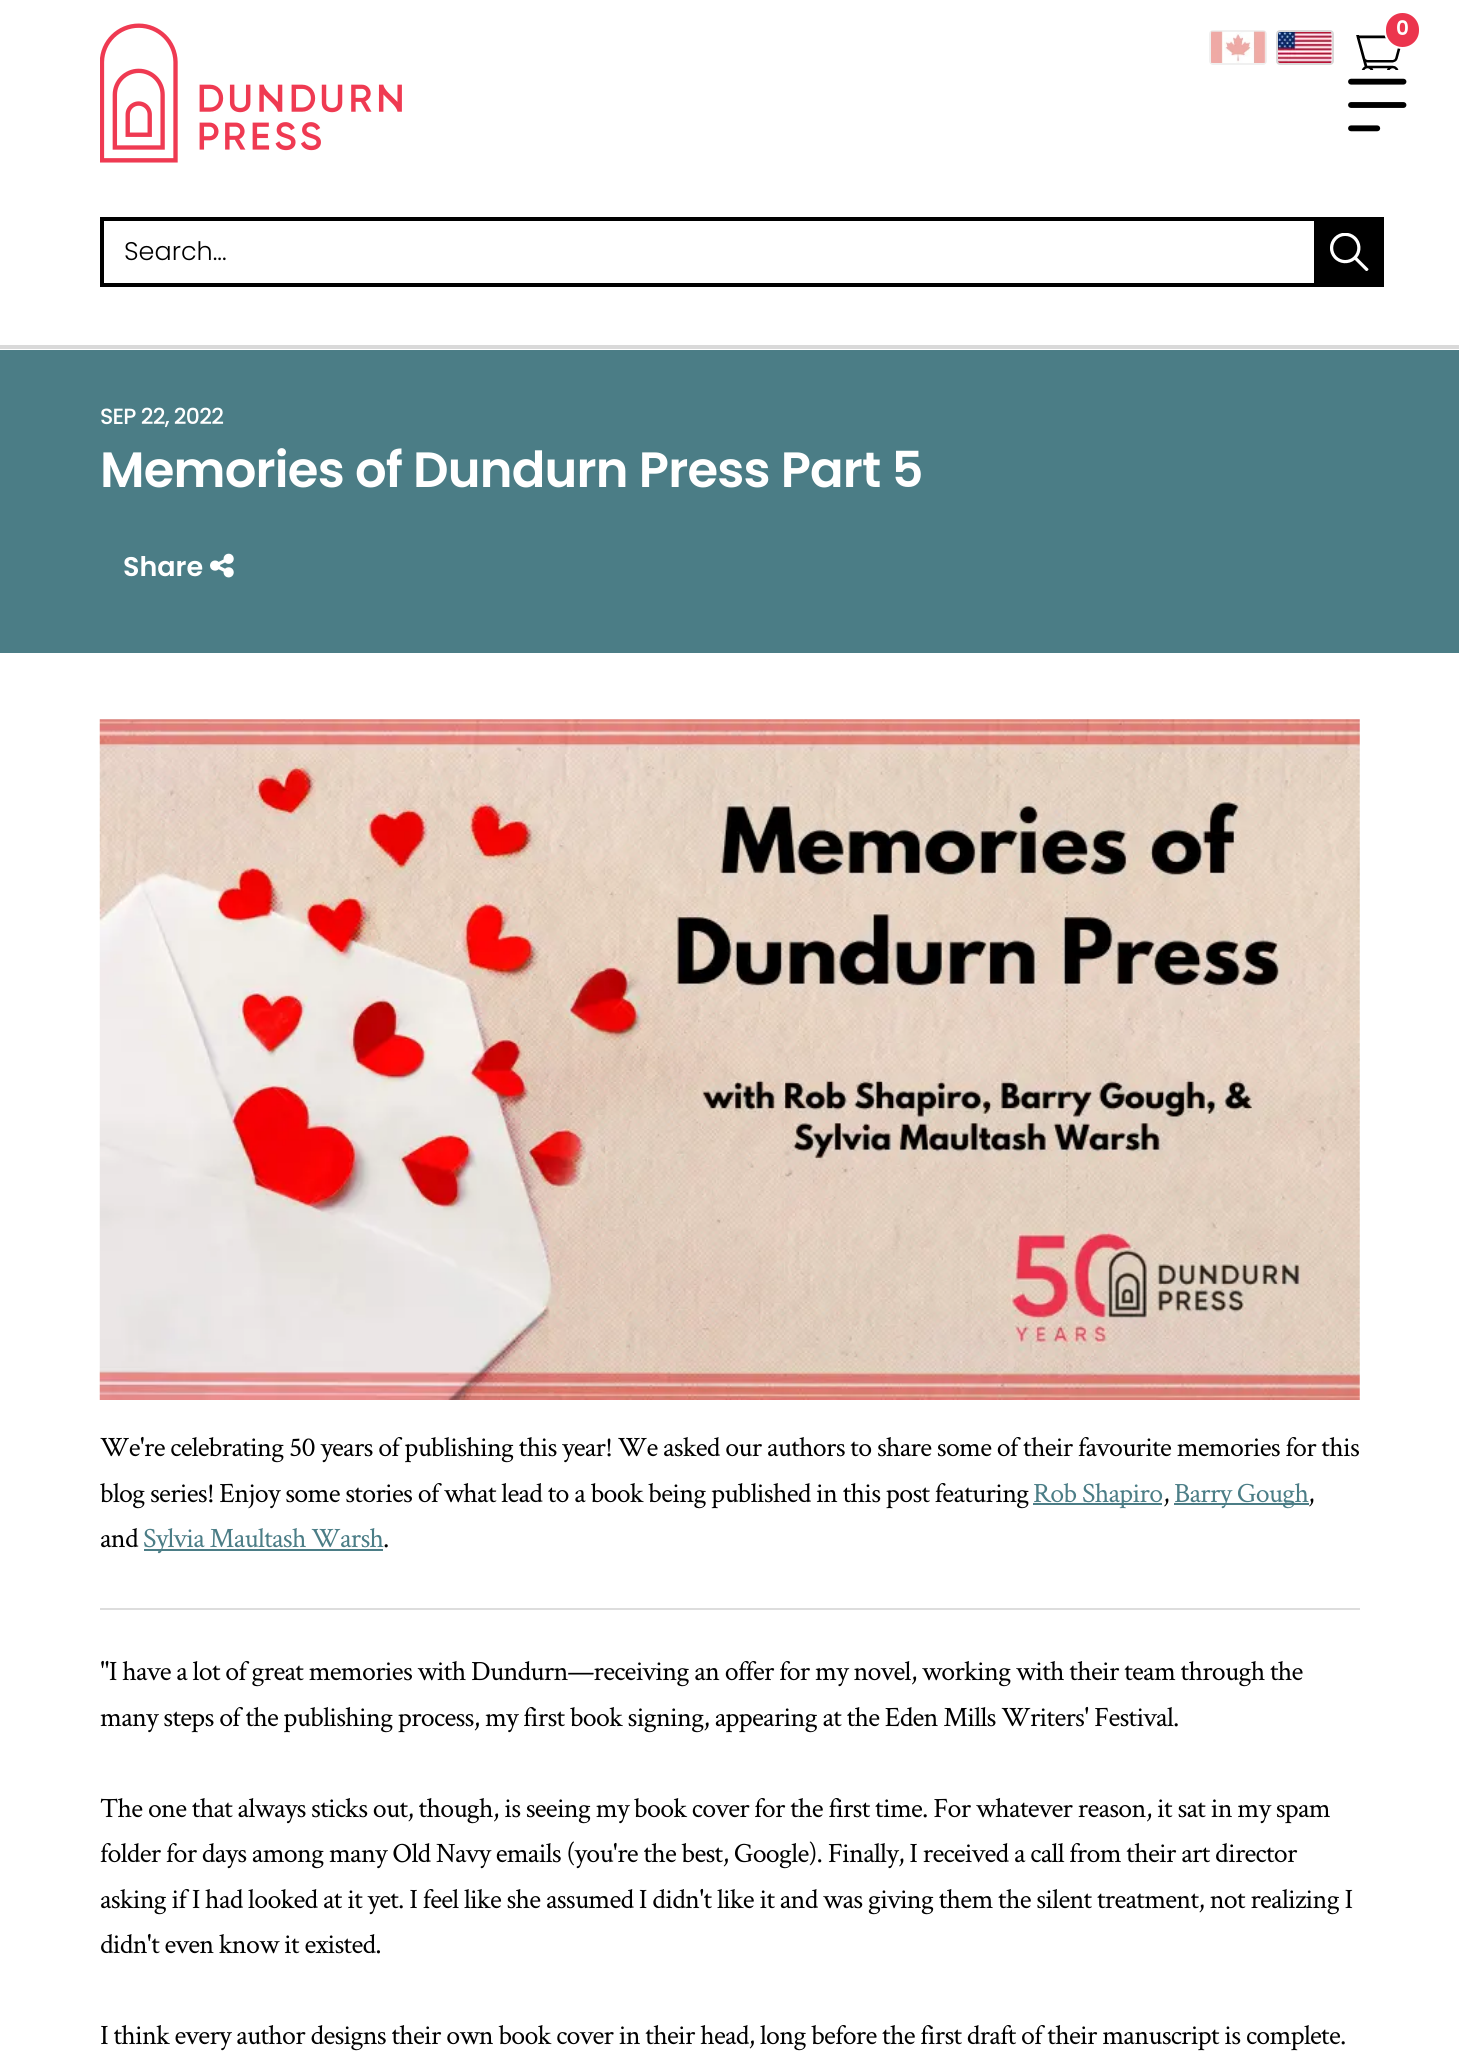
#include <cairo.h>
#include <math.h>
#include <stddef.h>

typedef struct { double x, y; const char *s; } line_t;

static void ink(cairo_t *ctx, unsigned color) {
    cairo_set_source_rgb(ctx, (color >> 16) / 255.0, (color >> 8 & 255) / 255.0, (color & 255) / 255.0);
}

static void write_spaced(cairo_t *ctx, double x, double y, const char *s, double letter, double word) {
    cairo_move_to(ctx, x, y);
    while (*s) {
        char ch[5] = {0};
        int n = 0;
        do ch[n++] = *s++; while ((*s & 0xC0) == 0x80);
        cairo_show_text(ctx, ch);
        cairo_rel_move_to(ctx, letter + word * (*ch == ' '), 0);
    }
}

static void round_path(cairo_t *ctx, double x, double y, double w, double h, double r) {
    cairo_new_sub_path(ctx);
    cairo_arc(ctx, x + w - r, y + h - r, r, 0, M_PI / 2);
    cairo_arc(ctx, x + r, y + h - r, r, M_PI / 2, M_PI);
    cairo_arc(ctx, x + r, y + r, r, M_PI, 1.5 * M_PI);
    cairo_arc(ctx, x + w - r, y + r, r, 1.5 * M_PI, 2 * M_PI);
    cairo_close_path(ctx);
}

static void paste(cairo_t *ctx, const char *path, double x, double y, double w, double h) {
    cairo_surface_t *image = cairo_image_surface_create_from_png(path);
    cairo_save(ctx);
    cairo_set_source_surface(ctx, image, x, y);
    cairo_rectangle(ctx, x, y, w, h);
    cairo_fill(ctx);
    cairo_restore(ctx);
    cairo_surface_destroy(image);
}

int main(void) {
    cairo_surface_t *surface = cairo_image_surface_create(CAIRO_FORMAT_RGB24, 1459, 2070);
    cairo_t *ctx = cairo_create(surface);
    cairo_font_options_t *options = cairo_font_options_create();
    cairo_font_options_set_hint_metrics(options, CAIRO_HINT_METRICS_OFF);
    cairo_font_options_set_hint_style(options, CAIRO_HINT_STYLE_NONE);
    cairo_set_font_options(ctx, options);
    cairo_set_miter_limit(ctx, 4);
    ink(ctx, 0xFFFFFF);
    cairo_paint(ctx);
    ink(ctx, 0xD9D9D9);
    cairo_rectangle(ctx, 0, 345, 1459, 4);
    cairo_fill(ctx);
    paste(ctx, "media/1.png", 100, 23, 302, 140);
    paste(ctx, "media/2.png", 1356, 35, 45, 35);
    ink(ctx, 0xEC354E);
    round_path(ctx, 1385, 12, 35, 36, 17.5);
    cairo_fill_preserve(ctx);
    ink(ctx, 0xFFFFFF);
    cairo_stroke(ctx);
    cairo_select_font_face(ctx, "Poppins SemiBold", CAIRO_FONT_SLANT_NORMAL, CAIRO_FONT_WEIGHT_NORMAL);
    cairo_set_font_size(ctx, 20);
    write_spaced(ctx, 1396, 35, "0", -0.73, 0);
    paste(ctx, "media/3.png", 1211, 31, 55, 32);
    round_path(ctx, 1210, 31, 56, 33, 3);
    cairo_set_source_rgba(ctx, 0.851, 0.851, 0.851, 0.4);
    cairo_stroke(ctx);
    paste(ctx, "media/4.png", 1277, 31, 55, 32);
    round_path(ctx, 1277, 31, 56, 33, 3);
    ink(ctx, 0xD9D9D9);
    cairo_stroke(ctx);
    paste(ctx, "media/5.png", 1348, 78, 59, 54);
    cairo_rectangle(ctx, 102, 219, 1237, 66);
    ink(ctx, 0x000000);
    cairo_set_line_width(ctx, 4);
    cairo_stroke(ctx);
    cairo_select_font_face(ctx, "Poppins Light", CAIRO_FONT_SLANT_NORMAL, CAIRO_FONT_WEIGHT_NORMAL);
    cairo_set_font_size(ctx, 25.5);
    cairo_move_to(ctx, 124, 260);
    cairo_show_text(ctx, "Search...");
    cairo_rectangle(ctx, 1314, 217, 70, 70);
    cairo_fill(ctx);
    paste(ctx, "media/6.png", 1330, 233, 39, 38);
    ink(ctx, 0x4B7D86);
    cairo_rectangle(ctx, 0, 350, 1459, 303);
    cairo_fill(ctx);
    cairo_select_font_face(ctx, "Poppins Medium", CAIRO_FONT_SLANT_NORMAL, CAIRO_FONT_WEIGHT_NORMAL);
    cairo_set_font_size(ctx, 22);
    ink(ctx, 0xFFFFFF);
    write_spaced(ctx, 100, 424, "SEP 22, 2022", -0.73, 0);
    cairo_select_font_face(ctx, "Poppins SemiBold", CAIRO_FONT_SLANT_NORMAL, CAIRO_FONT_WEIGHT_NORMAL);
    cairo_set_font_size(ctx, 49.6);
    write_spaced(ctx, 100, 487, "Memories of Dundurn Press Part 5", -0.8, 0);
    cairo_set_font_size(ctx, 27);
    cairo_move_to(ctx, 123, 576);
    cairo_show_text(ctx, "Share");
    paste(ctx, "media/7.png", 210, 553, 24, 25);
    paste(ctx, "media/8.png", 99, 719, 1261, 681);
    cairo_select_font_face(ctx, "Crimson Text", CAIRO_FONT_SLANT_NORMAL, CAIRO_FONT_WEIGHT_NORMAL);
    cairo_set_font_size(ctx, 28);
    ink(ctx, 0x000000);
    write_spaced(ctx, 100, 1456, "We're celebrating 50 years of publishing this year! We asked our authors to share some of their favourite memories for this", -0.73, 0);
    write_spaced(ctx, 100, 1502, "blog series! Enjoy some stories of what lead to a book being published in this post featuring", -0.73, 0);
    ink(ctx, 0x4B7D86);
    cairo_rectangle(ctx, 1033, 1503, 129, 2);
    cairo_fill(ctx);
    write_spaced(ctx, 1033, 1502, "Rob Shapiro", -0.73, 0);
    ink(ctx, 0x000000);
    write_spaced(ctx, 1163, 1502, ",", -0.73, 0);
    ink(ctx, 0x4B7D86);
    cairo_rectangle(ctx, 1174, 1503, 135, 2);
    cairo_fill(ctx);
    write_spaced(ctx, 1174, 1502, "Barry Gough", -0.73, 0);
    ink(ctx, 0x000000);
    write_spaced(ctx, 1308, 1502, ",", -0.73, 0);
    write_spaced(ctx, 100, 1547, "and", -0.73, 0);
    ink(ctx, 0x4B7D86);
    cairo_rectangle(ctx, 144, 1549, 239, 2);
    cairo_fill(ctx);
    write_spaced(ctx, 143, 1547, "Sylvia Maultash Warsh", -0.73, 0);
    ink(ctx, 0x000000);
    write_spaced(ctx, 383, 1547, ".", -0.73, 0);
    ink(ctx, 0xDDDDDD);
    cairo_rectangle(ctx, 100, 1608, 1260, 2);
    cairo_fill(ctx);
    ink(ctx, 0x000000);
    {
        static const line_t items[] = {
            {100, 1680, "\"I have a lot of great memories with Dundurn—receiving an offer for my novel, working with their team through the"},
            {100, 1726, "many steps of the publishing process, my first book signing, appearing at the Eden Mills Writers' Festival."},
            {100, 1817, "The one that always sticks out, though, is seeing my book cover for the first time. For whatever reason, it sat in my spam"},
            {100, 1862, "folder for days among many Old Navy emails (you're the best, Google). Finally, I received a call from their art director"},
            {100, 1908, "asking if I had looked at it yet. I feel like she assumed I didn't like it and was giving them the silent treatment, not realizing I"},
            {100, 1953, "didn't even know it existed."},
            {100, 2044, "I think every author designs their own book cover in their head, long before the first draft of their manuscript is complete."},
        };
        for (size_t i = 0; i < sizeof items / sizeof *items; i++) {
            write_spaced(ctx, items[i].x, items[i].y, items[i].s, -0.73, 0);
        }
    }
    cairo_surface_write_to_png(surface, "image.png");
    cairo_font_options_destroy(options);
    cairo_destroy(ctx);
    cairo_surface_destroy(surface);
    return 0;
}
